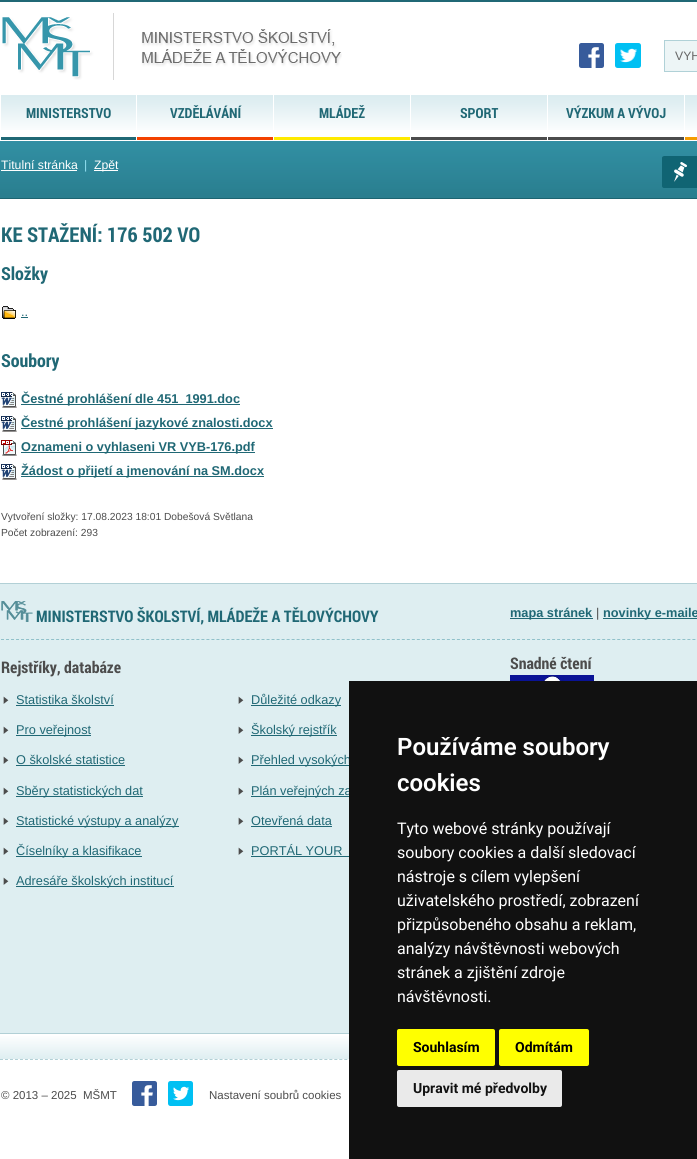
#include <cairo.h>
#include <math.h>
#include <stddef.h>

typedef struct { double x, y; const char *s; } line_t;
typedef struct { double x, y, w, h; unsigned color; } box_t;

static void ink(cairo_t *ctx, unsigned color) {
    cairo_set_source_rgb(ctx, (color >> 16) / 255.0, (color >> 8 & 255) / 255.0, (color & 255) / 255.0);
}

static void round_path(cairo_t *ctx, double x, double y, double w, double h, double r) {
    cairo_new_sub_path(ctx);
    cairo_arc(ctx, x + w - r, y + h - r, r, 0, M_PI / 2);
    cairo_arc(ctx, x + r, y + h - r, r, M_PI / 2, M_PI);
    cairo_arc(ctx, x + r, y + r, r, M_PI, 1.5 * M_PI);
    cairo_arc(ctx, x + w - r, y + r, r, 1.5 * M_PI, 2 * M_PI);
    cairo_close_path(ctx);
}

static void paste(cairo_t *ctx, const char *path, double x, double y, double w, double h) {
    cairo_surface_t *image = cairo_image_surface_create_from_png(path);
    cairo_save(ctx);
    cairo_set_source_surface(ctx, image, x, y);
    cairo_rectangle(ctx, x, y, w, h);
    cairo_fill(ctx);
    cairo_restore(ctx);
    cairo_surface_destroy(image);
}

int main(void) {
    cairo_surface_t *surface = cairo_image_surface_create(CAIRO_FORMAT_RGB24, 697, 1159);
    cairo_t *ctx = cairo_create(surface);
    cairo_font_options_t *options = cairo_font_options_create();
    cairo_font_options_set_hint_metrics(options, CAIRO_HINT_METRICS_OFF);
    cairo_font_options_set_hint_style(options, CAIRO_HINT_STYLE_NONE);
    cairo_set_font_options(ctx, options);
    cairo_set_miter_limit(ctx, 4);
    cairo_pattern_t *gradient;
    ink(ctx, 0xFFFFFF);
    cairo_paint(ctx);
    ink(ctx, 0x206875);
    cairo_rectangle(ctx, 0, 0, 697, 2);
    cairo_fill(ctx);
    paste(ctx, "media/1.png", 0, 141, 697, 58);
    paste(ctx, "media/2.png", 2, 13, 340, 67);
    paste(ctx, "media/3.png", 579, 43, 25, 25);
    paste(ctx, "media/4.png", 615, 43, 26, 25);
    {
        static const box_t items[] = {
            {665, 41, 32, 30, 0xEDF5F6},
            {664, 40, 33, 1, 0xB0D1D7},
            {664, 71, 33, 1, 0xB0D1D7},
            {664, 40, 1, 32, 0xB0D1D7},
        };
        for (size_t i = 0; i < sizeof items / sizeof *items; i++) {
            ink(ctx, items[i].color);
            cairo_rectangle(ctx, items[i].x, items[i].y, items[i].w, items[i].h);
            cairo_fill(ctx);
        }
    }
    cairo_select_font_face(ctx, "Liberation Sans", CAIRO_FONT_SLANT_NORMAL, CAIRO_FONT_WEIGHT_NORMAL);
    cairo_set_font_size(ctx, 12.25);
    ink(ctx, 0x666666);
    cairo_move_to(ctx, 675, 60);
    cairo_show_text(ctx, "VYH");
    paste(ctx, "media/5.png", 1, 95, 135, 35);
    ink(ctx, 0x206875);
    cairo_rectangle(ctx, 1, 137, 135, 3);
    cairo_fill(ctx);
    cairo_select_font_face(ctx, "Roboto Condensed", CAIRO_FONT_SLANT_NORMAL, CAIRO_FONT_WEIGHT_BOLD);
    cairo_set_font_size(ctx, 14);
    cairo_move_to(ctx, 26, 118);
    cairo_show_text(ctx, "MINISTERSTVO");
    paste(ctx, "media/6.png", 137, 95, 136, 35);
    ink(ctx, 0xF34100);
    cairo_rectangle(ctx, 137, 137, 136, 3);
    cairo_fill(ctx);
    ink(ctx, 0x206875);
    cairo_move_to(ctx, 170, 118);
    cairo_show_text(ctx, "VZDĚLÁVÁNÍ");
    paste(ctx, "media/6.png", 274, 95, 136, 35);
    ink(ctx, 0xFFEA00);
    cairo_rectangle(ctx, 274, 137, 136, 3);
    cairo_fill(ctx);
    ink(ctx, 0x206875);
    cairo_move_to(ctx, 319, 118);
    cairo_show_text(ctx, "MLÁDEŽ");
    paste(ctx, "media/6.png", 411, 95, 136, 35);
    ink(ctx, 0x4C4C4C);
    cairo_rectangle(ctx, 411, 137, 136, 3);
    cairo_fill(ctx);
    ink(ctx, 0x206875);
    cairo_move_to(ctx, 460, 118);
    cairo_show_text(ctx, "SPORT");
    paste(ctx, "media/6.png", 548, 95, 136, 35);
    ink(ctx, 0x4C4C4C);
    cairo_rectangle(ctx, 548, 137, 136, 3);
    cairo_fill(ctx);
    ink(ctx, 0x206875);
    cairo_move_to(ctx, 566, 118);
    cairo_show_text(ctx, "VÝZKUM A VÝVOJ");
    paste(ctx, "media/7.png", 685, 95, 12, 35);
    ink(ctx, 0xF59C00);
    cairo_rectangle(ctx, 685, 137, 12, 3);
    cairo_fill(ctx);
    paste(ctx, "media/8.png", 662, 156, 35, 32);
    cairo_select_font_face(ctx, "Liberation Sans", CAIRO_FONT_SLANT_NORMAL, CAIRO_FONT_WEIGHT_NORMAL);
    cairo_set_font_size(ctx, 12.25);
    ink(ctx, 0xFFFFFF);
    cairo_move_to(ctx, 1, 169);
    cairo_show_text(ctx, "Titulní stránka");
    cairo_rectangle(ctx, 1, 170, 76, 1);
    cairo_fill(ctx);
    ink(ctx, 0x92E0F1);
    cairo_move_to(ctx, 84, 169);
    cairo_show_text(ctx, "|");
    ink(ctx, 0xFFFFFF);
    cairo_rectangle(ctx, 94, 170, 24, 1);
    cairo_fill(ctx);
    cairo_move_to(ctx, 94, 169);
    cairo_show_text(ctx, "Zpět");
    cairo_select_font_face(ctx, "Roboto Condensed", CAIRO_FONT_SLANT_NORMAL, CAIRO_FONT_WEIGHT_BOLD);
    cairo_set_font_size(ctx, 20.5);
    ink(ctx, 0x206875);
    cairo_move_to(ctx, 1, 242);
    cairo_show_text(ctx, "KE STAŽENÍ: 176 502 VO");
    cairo_set_font_size(ctx, 18);
    cairo_move_to(ctx, 1, 280);
    cairo_show_text(ctx, "Složky");
    paste(ctx, "media/9.png", 2, 306, 14, 13);
    cairo_select_font_face(ctx, "Liberation Sans", CAIRO_FONT_SLANT_NORMAL, CAIRO_FONT_WEIGHT_NORMAL);
    cairo_set_font_size(ctx, 12.75);
    cairo_move_to(ctx, 21, 316);
    cairo_show_text(ctx, "..");
    cairo_rectangle(ctx, 21, 317, 7, 1);
    cairo_fill(ctx);
    cairo_select_font_face(ctx, "Roboto Condensed", CAIRO_FONT_SLANT_NORMAL, CAIRO_FONT_WEIGHT_BOLD);
    cairo_set_font_size(ctx, 18);
    cairo_move_to(ctx, 1, 367);
    cairo_show_text(ctx, "Soubory");
    paste(ctx, "media/10.png", 1, 392, 16, 16);
    cairo_rectangle(ctx, 21, 404, 219, 1);
    cairo_fill(ctx);
    cairo_select_font_face(ctx, "Liberation Sans", CAIRO_FONT_SLANT_NORMAL, CAIRO_FONT_WEIGHT_BOLD);
    cairo_set_font_size(ctx, 12.75);
    cairo_move_to(ctx, 21, 403);
    cairo_show_text(ctx, "Čestné prohlášení dle 451_1991.doc");
    paste(ctx, "media/10.png", 1, 416, 16, 16);
    cairo_rectangle(ctx, 21, 428, 252, 1);
    cairo_fill(ctx);
    cairo_move_to(ctx, 21, 427);
    cairo_show_text(ctx, "Čestné prohlášení jazykové znalosti.docx");
    paste(ctx, "media/11.png", 1, 440, 16, 16);
    cairo_rectangle(ctx, 21, 452, 234, 1);
    cairo_fill(ctx);
    cairo_move_to(ctx, 21, 451);
    cairo_show_text(ctx, "Oznameni o vyhlaseni VR VYB-176.pdf");
    paste(ctx, "media/10.png", 1, 464, 16, 16);
    cairo_rectangle(ctx, 21, 476, 243, 1);
    cairo_fill(ctx);
    cairo_move_to(ctx, 21, 475);
    cairo_show_text(ctx, "Žádost o přijetí a jmenování na SM.docx");
    cairo_select_font_face(ctx, "Liberation Sans", CAIRO_FONT_SLANT_NORMAL, CAIRO_FONT_WEIGHT_NORMAL);
    cairo_set_font_size(ctx, 10.25);
    ink(ctx, 0x4C4C4C);
    cairo_move_to(ctx, 1, 520);
    cairo_show_text(ctx, "Vytvoření složky: 17.08.2023 18:01 Dobešová Světlana");
    cairo_move_to(ctx, 1, 536);
    cairo_show_text(ctx, "Počet zobrazení: 293");
    ink(ctx, 0xDEEEF1);
    cairo_rectangle(ctx, 0, 584, 697, 449);
    cairo_fill(ctx);
    ink(ctx, 0xB2D0D6);
    cairo_rectangle(ctx, 0, 583, 697, 1);
    cairo_fill(ctx);
    paste(ctx, "media/12.png", 1, 601, 32, 21);
    cairo_select_font_face(ctx, "Roboto Condensed", CAIRO_FONT_SLANT_NORMAL, CAIRO_FONT_WEIGHT_BOLD);
    cairo_set_font_size(ctx, 16);
    ink(ctx, 0x206875);
    cairo_move_to(ctx, 36, 622);
    cairo_show_text(ctx, "MINISTERSTVO ŠKOLSTVÍ, MLÁDEŽE A TĚLOVÝCHOVY");
    cairo_rectangle(ctx, 510, 618, 83, 1);
    cairo_fill(ctx);
    cairo_select_font_face(ctx, "Liberation Sans", CAIRO_FONT_SLANT_NORMAL, CAIRO_FONT_WEIGHT_BOLD);
    cairo_set_font_size(ctx, 12.75);
    cairo_move_to(ctx, 510, 617);
    cairo_show_text(ctx, "mapa stránek");
    cairo_select_font_face(ctx, "Liberation Sans", CAIRO_FONT_SLANT_NORMAL, CAIRO_FONT_WEIGHT_NORMAL);
    ink(ctx, 0x4C4C4C);
    cairo_move_to(ctx, 596, 617);
    cairo_show_text(ctx, "|");
    ink(ctx, 0x206875);
    cairo_rectangle(ctx, 603, 618, 94, 1);
    cairo_fill(ctx);
    cairo_select_font_face(ctx, "Liberation Sans", CAIRO_FONT_SLANT_NORMAL, CAIRO_FONT_WEIGHT_BOLD);
    cairo_move_to(ctx, 603, 617);
    cairo_show_text(ctx, "novinky e-maile");
    cairo_new_path(ctx);
    cairo_move_to(ctx, 1, 639.5);
    cairo_line_to(ctx, 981, 639.5);
    ink(ctx, 0x90C1CA);
    cairo_set_line_width(ctx, 1);
    cairo_set_dash(ctx, (double[]){3, 2.01}, 2, 0);
    cairo_stroke(ctx);
    cairo_select_font_face(ctx, "Roboto Condensed", CAIRO_FONT_SLANT_NORMAL, CAIRO_FONT_WEIGHT_BOLD);
    cairo_set_font_size(ctx, 16);
    ink(ctx, 0x4C4C4C);
    cairo_move_to(ctx, 1, 673);
    cairo_show_text(ctx, "Rejstříky, databáze");
    paste(ctx, "media/13.png", 3, 696, 6, 8);
    cairo_select_font_face(ctx, "Liberation Sans", CAIRO_FONT_SLANT_NORMAL, CAIRO_FONT_WEIGHT_NORMAL);
    cairo_set_font_size(ctx, 12.75);
    ink(ctx, 0x206875);
    cairo_move_to(ctx, 16, 704);
    cairo_show_text(ctx, "Statistika školství");
    cairo_rectangle(ctx, 16, 705, 98, 1);
    cairo_fill(ctx);
    paste(ctx, "media/13.png", 3, 726, 6, 8);
    cairo_rectangle(ctx, 16, 735, 75, 1);
    cairo_fill(ctx);
    cairo_move_to(ctx, 16, 734);
    cairo_show_text(ctx, "Pro veřejnost");
    paste(ctx, "media/13.png", 3, 756, 6, 8);
    cairo_move_to(ctx, 16, 764);
    cairo_show_text(ctx, "O školské statistice");
    cairo_rectangle(ctx, 16, 765, 109, 1);
    cairo_fill(ctx);
    paste(ctx, "media/13.png", 3, 787, 6, 8);
    cairo_rectangle(ctx, 16, 796, 127, 1);
    cairo_fill(ctx);
    cairo_move_to(ctx, 16, 795);
    cairo_show_text(ctx, "Sběry statistických dat");
    paste(ctx, "media/13.png", 3, 817, 6, 8);
    cairo_rectangle(ctx, 16, 826, 163, 1);
    cairo_fill(ctx);
    cairo_move_to(ctx, 16, 825);
    cairo_show_text(ctx, "Statistické výstupy a analýzy");
    paste(ctx, "media/13.png", 3, 847, 6, 8);
    cairo_rectangle(ctx, 16, 856, 126, 1);
    cairo_fill(ctx);
    cairo_move_to(ctx, 16, 855);
    cairo_show_text(ctx, "Číselníky a klasifikace");
    paste(ctx, "media/13.png", 3, 877, 6, 8);
    cairo_rectangle(ctx, 16, 886, 158, 1);
    cairo_fill(ctx);
    cairo_move_to(ctx, 16, 885);
    cairo_show_text(ctx, "Adresáře školských institucí");
    paste(ctx, "media/13.png", 238, 696, 6, 8);
    cairo_rectangle(ctx, 251, 705, 90, 1);
    cairo_fill(ctx);
    cairo_move_to(ctx, 251, 704);
    cairo_show_text(ctx, "Důležité odkazy");
    paste(ctx, "media/13.png", 238, 726, 6, 8);
    cairo_rectangle(ctx, 251, 735, 86, 1);
    cairo_fill(ctx);
    cairo_move_to(ctx, 251, 734);
    cairo_show_text(ctx, "Školský rejstřík");
    paste(ctx, "media/13.png", 238, 756, 6, 8);
    cairo_rectangle(ctx, 251, 765, 98, 1);
    cairo_fill(ctx);
    cairo_move_to(ctx, 251, 764);
    cairo_show_text(ctx, "Přehled vysokých");
    paste(ctx, "media/13.png", 238, 787, 6, 8);
    cairo_rectangle(ctx, 251, 796, 98, 1);
    cairo_fill(ctx);
    cairo_move_to(ctx, 251, 795);
    cairo_show_text(ctx, "Plán veřejných za");
    paste(ctx, "media/13.png", 238, 817, 6, 8);
    cairo_move_to(ctx, 251, 825);
    cairo_show_text(ctx, "Otevřená data");
    cairo_rectangle(ctx, 251, 826, 81, 1);
    cairo_fill(ctx);
    paste(ctx, "media/13.png", 238, 847, 6, 8);
    cairo_move_to(ctx, 251, 855);
    cairo_show_text(ctx, "PORTÁL YOUR");
    cairo_rectangle(ctx, 251, 856, 98, 1);
    cairo_fill(ctx);
    cairo_select_font_face(ctx, "Roboto Condensed", CAIRO_FONT_SLANT_NORMAL, CAIRO_FONT_WEIGHT_BOLD);
    cairo_set_font_size(ctx, 16);
    ink(ctx, 0x4C4C4C);
    cairo_move_to(ctx, 510, 669);
    cairo_show_text(ctx, "Snadné čtení");
    paste(ctx, "media/14.png", 510, 675, 84, 6);
    gradient = cairo_pattern_create_linear(491, 1034, 491, 1059);
    cairo_pattern_add_color_stop_rgba(gradient, 0.01, 1, 1, 1, 1);
    cairo_pattern_add_color_stop_rgba(gradient, 1, 0.871, 0.933, 0.945, 1);
    cairo_set_source(ctx, gradient);
    cairo_pattern_destroy(gradient);
    cairo_rectangle(ctx, 0, 1036, 349, 23);
    cairo_fill(ctx);
    ink(ctx, 0xB2D0D6);
    cairo_rectangle(ctx, 0, 1033, 349, 1);
    cairo_fill(ctx);
    cairo_new_path(ctx);
    cairo_move_to(ctx, 0, 1059.5);
    cairo_line_to(ctx, 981, 1059.5);
    cairo_set_dash(ctx, (double[]){3, 1.99}, 2, 0);
    cairo_stroke(ctx);
    cairo_select_font_face(ctx, "Liberation Sans", CAIRO_FONT_SLANT_NORMAL, CAIRO_FONT_WEIGHT_NORMAL);
    cairo_set_font_size(ctx, 11.5);
    ink(ctx, 0x4C4C4C);
    cairo_move_to(ctx, 1, 1099);
    cairo_show_text(ctx, "© 2013 – 2025  MŠMT");
    paste(ctx, "media/3.png", 132, 1081, 25, 25);
    paste(ctx, "media/15.png", 168, 1081, 25, 25);
    cairo_move_to(ctx, 209, 1099);
    cairo_show_text(ctx, "Nastavení soubrů cookies");
    ink(ctx, 0x111111);
    cairo_rectangle(ctx, 349, 681, 348, 478);
    cairo_fill(ctx);
    cairo_select_font_face(ctx, "Roboto SemiBold", CAIRO_FONT_SLANT_NORMAL, CAIRO_FONT_WEIGHT_NORMAL);
    cairo_set_font_size(ctx, 24);
    ink(ctx, 0xFFFFFF);
    cairo_move_to(ctx, 397, 755);
    cairo_show_text(ctx, "Používáme soubory");
    cairo_move_to(ctx, 397, 791);
    cairo_show_text(ctx, "cookies");
    cairo_select_font_face(ctx, "Roboto", CAIRO_FONT_SLANT_NORMAL, CAIRO_FONT_WEIGHT_NORMAL);
    cairo_set_font_size(ctx, 16);
    {
        static const line_t items[] = {
            {397, 834, "Tyto webové stránky používají"},
            {397, 858, "soubory cookies a další sledovací"},
            {397, 882, "nástroje s cílem vylepšení"},
            {397, 906, "uživatelského prostředí, zobrazení"},
            {397, 930, "přizpůsobeného obsahu a reklam,"},
            {397, 954, "analýzy návštěvnosti webových"},
            {397, 978, "stránek a zjištění zdroje"},
            {397, 1002, "návštěvnosti."},
        };
        for (size_t i = 0; i < sizeof items / sizeof *items; i++) {
            cairo_move_to(ctx, items[i].x, items[i].y);
            cairo_show_text(ctx, items[i].s);
        }
    }
    ink(ctx, 0xFFFF00);
    round_path(ctx, 397, 1029, 98, 37, 2);
    cairo_fill(ctx);
    cairo_select_font_face(ctx, "Roboto", CAIRO_FONT_SLANT_NORMAL, CAIRO_FONT_WEIGHT_BOLD);
    cairo_set_font_size(ctx, 14);
    ink(ctx, 0x000000);
    cairo_move_to(ctx, 413, 1052);
    cairo_show_text(ctx, "Souhlasím");
    ink(ctx, 0xFFFF00);
    round_path(ctx, 499, 1029, 90, 37, 2);
    cairo_fill(ctx);
    ink(ctx, 0x000000);
    cairo_move_to(ctx, 515, 1052);
    cairo_show_text(ctx, "Odmítám");
    ink(ctx, 0xEAEAEA);
    round_path(ctx, 397, 1070, 165, 37, 2);
    cairo_fill(ctx);
    ink(ctx, 0x111111);
    cairo_move_to(ctx, 413, 1093);
    cairo_show_text(ctx, "Upravit mé předvolby");
    cairo_surface_write_to_png(surface, "image.png");
    cairo_font_options_destroy(options);
    cairo_destroy(ctx);
    cairo_surface_destroy(surface);
    return 0;
}
